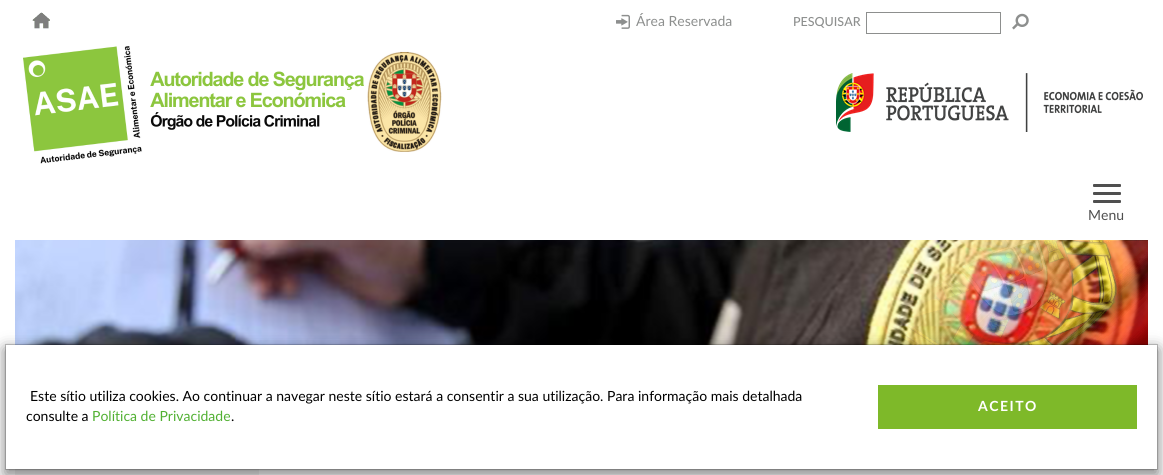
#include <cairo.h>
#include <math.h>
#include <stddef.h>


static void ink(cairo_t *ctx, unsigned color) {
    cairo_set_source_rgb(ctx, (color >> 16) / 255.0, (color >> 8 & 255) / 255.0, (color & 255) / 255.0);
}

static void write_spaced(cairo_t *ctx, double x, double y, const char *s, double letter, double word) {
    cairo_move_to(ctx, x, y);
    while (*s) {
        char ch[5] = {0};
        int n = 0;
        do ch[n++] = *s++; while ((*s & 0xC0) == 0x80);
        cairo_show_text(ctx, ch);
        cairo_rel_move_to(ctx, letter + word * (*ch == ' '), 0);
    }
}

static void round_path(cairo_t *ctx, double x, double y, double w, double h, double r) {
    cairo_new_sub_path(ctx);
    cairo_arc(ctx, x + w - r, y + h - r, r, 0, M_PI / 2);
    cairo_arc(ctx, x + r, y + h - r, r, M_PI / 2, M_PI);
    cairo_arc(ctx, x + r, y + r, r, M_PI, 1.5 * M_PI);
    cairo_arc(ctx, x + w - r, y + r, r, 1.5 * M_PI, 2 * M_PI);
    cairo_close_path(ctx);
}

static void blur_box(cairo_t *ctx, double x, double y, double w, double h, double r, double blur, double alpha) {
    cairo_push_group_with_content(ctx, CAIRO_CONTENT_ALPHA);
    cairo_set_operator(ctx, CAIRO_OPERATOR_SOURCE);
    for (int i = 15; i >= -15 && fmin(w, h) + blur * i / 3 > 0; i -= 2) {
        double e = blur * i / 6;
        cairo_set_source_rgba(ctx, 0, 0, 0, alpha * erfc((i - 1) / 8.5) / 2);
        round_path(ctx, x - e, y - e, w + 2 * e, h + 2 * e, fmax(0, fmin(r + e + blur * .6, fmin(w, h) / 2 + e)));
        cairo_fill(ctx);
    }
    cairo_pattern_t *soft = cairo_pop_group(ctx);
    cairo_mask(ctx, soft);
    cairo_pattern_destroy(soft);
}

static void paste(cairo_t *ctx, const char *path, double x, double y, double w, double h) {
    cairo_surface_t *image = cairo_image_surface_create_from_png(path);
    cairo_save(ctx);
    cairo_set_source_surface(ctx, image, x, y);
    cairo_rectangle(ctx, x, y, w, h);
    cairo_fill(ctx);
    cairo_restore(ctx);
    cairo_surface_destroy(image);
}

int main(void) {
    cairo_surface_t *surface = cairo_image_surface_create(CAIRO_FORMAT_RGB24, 1163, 475);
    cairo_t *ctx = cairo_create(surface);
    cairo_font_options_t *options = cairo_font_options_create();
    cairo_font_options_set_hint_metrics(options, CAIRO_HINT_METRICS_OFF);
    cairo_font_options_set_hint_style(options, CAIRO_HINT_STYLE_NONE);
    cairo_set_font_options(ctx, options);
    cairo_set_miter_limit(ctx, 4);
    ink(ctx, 0xFFFFFF);
    cairo_paint(ctx);
    paste(ctx, "media/1.png", 32, 12, 18, 17);
    paste(ctx, "media/2.png", 616, 14, 14, 15);
    cairo_select_font_face(ctx, "Lato", CAIRO_FONT_SLANT_NORMAL, CAIRO_FONT_WEIGHT_NORMAL);
    cairo_set_font_size(ctx, 14);
    ink(ctx, 0x8D8F8E);
    cairo_move_to(ctx, 636, 26);
    cairo_show_text(ctx, "Área Reservada");
    cairo_select_font_face(ctx, "Lato Medium", CAIRO_FONT_SLANT_NORMAL, CAIRO_FONT_WEIGHT_NORMAL);
    cairo_set_font_size(ctx, 12.5);
    cairo_move_to(ctx, 793, 26);
    cairo_show_text(ctx, "PESQUISAR");
    cairo_rectangle(ctx, 866.5, 12.5, 134, 21);
    cairo_set_line_width(ctx, 1);
    cairo_stroke(ctx);
    paste(ctx, "media/3.png", 1012, 13, 17, 17);
    paste(ctx, "media/4.png", 23, 46, 419, 118);
    paste(ctx, "media/5.png", 836, 73, 307, 59);
    ink(ctx, 0x4F4F4F);
    round_path(ctx, 1093, 184, 28, 3, 1);
    cairo_fill(ctx);
    round_path(ctx, 1093, 192, 28, 3, 1);
    cairo_fill(ctx);
    round_path(ctx, 1093, 200, 28, 3, 1);
    cairo_fill(ctx);
    cairo_select_font_face(ctx, "Lato", CAIRO_FONT_SLANT_NORMAL, CAIRO_FONT_WEIGHT_NORMAL);
    cairo_set_font_size(ctx, 14);
    cairo_move_to(ctx, 1088, 220);
    cairo_show_text(ctx, "Menu");
    paste(ctx, "media/6.png", 15, 240, 1133, 105);
    paste(ctx, "media/7.png", 875, 240, 273, 105);
    ink(ctx, 0xF2F2F2);
    cairo_rectangle(ctx, 15, 469, 244, 6);
    cairo_fill(ctx);
    ink(ctx, 0x000000);
    blur_box(ctx, 5, 349, 1153, 126, 0, 7.5, 0.5);
    ink(ctx, 0xFFFFFF);
    cairo_rectangle(ctx, 6, 345, 1151, 124);
    cairo_fill(ctx);
    cairo_rectangle(ctx, 5.5, 344.5, 1152, 125);
    cairo_set_source_rgba(ctx, 0, 0, 0, 0.2);
    cairo_stroke(ctx);
    ink(ctx, 0x000000);
    cairo_move_to(ctx, 30, 401);
    cairo_show_text(ctx, "Este sítio utiliza cookies. Ao continuar a navegar neste sítio estará a consentir a sua utilização. Para informação mais detalhada");
    cairo_move_to(ctx, 26, 421);
    cairo_show_text(ctx, "consulte a");
    ink(ctx, 0x51B032);
    cairo_move_to(ctx, 92, 421);
    cairo_show_text(ctx, "Política de Privacidade");
    ink(ctx, 0x000000);
    cairo_move_to(ctx, 231, 421);
    cairo_show_text(ctx, ".");
    ink(ctx, 0x7EB929);
    cairo_rectangle(ctx, 878, 385, 259, 44);
    cairo_fill(ctx);
    cairo_select_font_face(ctx, "Lato", CAIRO_FONT_SLANT_NORMAL, CAIRO_FONT_WEIGHT_BOLD);
    ink(ctx, 0xFFFFFF);
    write_spaced(ctx, 978, 411, "ACEITO", 1.5, 0);
    cairo_surface_write_to_png(surface, "image.png");
    cairo_font_options_destroy(options);
    cairo_destroy(ctx);
    cairo_surface_destroy(surface);
    return 0;
}
